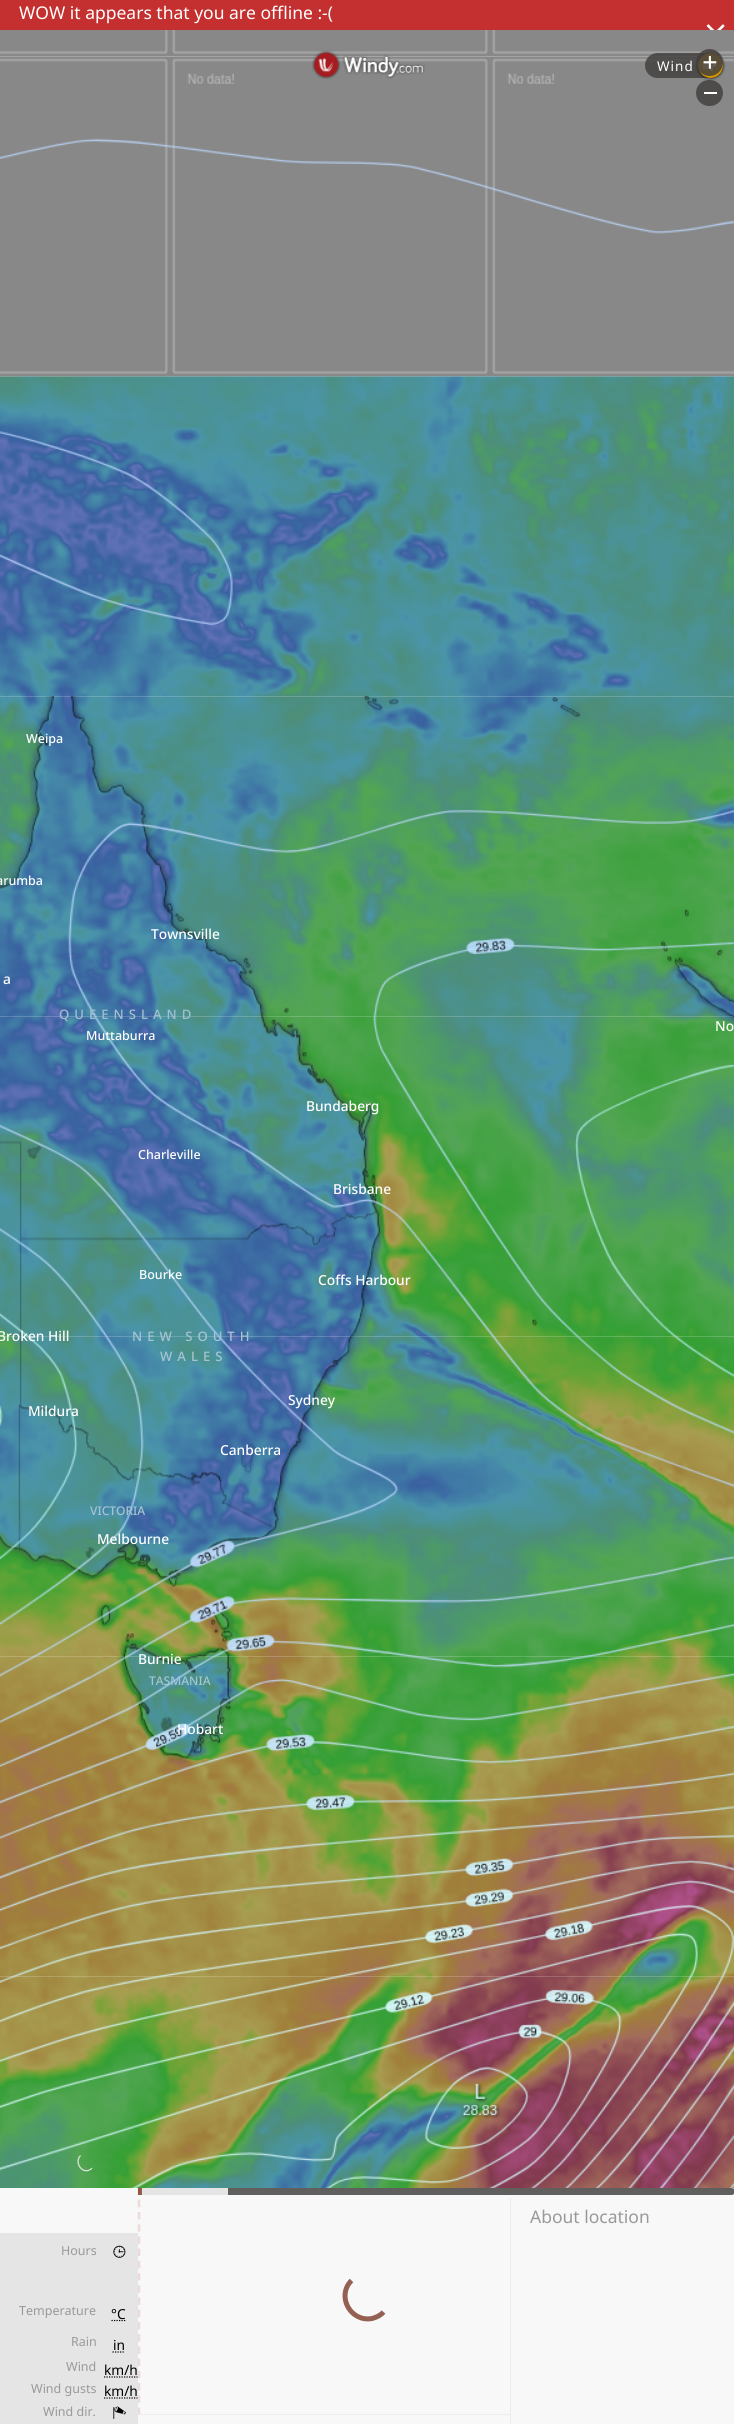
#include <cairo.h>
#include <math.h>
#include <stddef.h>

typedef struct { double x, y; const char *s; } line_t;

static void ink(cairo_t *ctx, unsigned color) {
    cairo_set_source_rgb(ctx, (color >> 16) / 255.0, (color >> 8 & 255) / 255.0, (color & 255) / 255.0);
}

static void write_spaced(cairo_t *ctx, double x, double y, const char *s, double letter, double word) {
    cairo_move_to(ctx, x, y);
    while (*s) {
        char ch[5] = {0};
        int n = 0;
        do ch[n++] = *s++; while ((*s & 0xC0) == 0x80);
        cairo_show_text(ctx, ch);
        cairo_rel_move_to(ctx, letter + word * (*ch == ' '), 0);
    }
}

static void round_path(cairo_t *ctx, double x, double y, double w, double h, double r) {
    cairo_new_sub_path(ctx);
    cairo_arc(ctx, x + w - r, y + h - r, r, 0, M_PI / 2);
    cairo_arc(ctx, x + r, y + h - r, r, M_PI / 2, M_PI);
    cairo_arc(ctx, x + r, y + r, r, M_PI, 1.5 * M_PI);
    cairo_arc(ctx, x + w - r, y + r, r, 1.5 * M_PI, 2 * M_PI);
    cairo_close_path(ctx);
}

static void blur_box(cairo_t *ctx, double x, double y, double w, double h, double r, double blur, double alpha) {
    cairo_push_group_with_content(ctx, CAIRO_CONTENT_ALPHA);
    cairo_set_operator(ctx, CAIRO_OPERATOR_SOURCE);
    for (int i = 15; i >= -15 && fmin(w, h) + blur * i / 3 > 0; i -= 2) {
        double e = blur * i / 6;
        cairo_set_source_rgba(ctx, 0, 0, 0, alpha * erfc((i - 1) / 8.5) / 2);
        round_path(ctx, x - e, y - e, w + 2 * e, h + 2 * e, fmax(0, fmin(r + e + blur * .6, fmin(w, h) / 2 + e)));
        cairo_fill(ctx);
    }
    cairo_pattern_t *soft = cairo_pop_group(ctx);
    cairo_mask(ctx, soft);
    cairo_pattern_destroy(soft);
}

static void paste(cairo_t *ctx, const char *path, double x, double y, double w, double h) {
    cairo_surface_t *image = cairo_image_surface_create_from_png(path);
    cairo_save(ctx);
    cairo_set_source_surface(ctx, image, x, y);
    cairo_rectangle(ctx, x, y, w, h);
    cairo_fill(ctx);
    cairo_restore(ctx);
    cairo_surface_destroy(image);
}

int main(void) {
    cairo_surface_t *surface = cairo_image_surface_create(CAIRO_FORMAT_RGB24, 734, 2424);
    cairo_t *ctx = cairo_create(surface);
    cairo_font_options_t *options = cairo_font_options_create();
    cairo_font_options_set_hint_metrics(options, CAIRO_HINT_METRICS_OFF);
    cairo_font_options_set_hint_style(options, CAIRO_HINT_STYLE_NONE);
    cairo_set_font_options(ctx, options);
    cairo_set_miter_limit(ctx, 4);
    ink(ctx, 0xFFFFFF);
    cairo_paint(ctx);
    ink(ctx, 0xC42F2F);
    cairo_rectangle(ctx, 0, 0, 734, 30);
    cairo_fill(ctx);
    cairo_select_font_face(ctx, "Noto Sans", CAIRO_FONT_SLANT_NORMAL, CAIRO_FONT_WEIGHT_NORMAL);
    cairo_set_font_size(ctx, 17.5);
    ink(ctx, 0xFFFFFF);
    cairo_move_to(ctx, 19, 19);
    cairo_show_text(ctx, "WOW it appears that you are offline :-(");
    paste(ctx, "media/1.png", 706, 24, 19, 6);
    paste(ctx, "media/7.png", 170, 30, 320, 26);
    paste(ctx, "media/19.png", 170, 1016, 320, 321);
    paste(ctx, "media/16.png", 170, 696, 320, 321);
    paste(ctx, "media/13.png", 170, 376, 320, 321);
    paste(ctx, "media/10.png", 170, 56, 320, 321);
    paste(ctx, "media/2.png", 312, 50, 29, 29);
    paste(ctx, "media/3.png", 342, 55, 83, 24);
    paste(ctx, "media/8.png", 490, 30, 244, 26);
    paste(ctx, "media/20.png", 490, 1016, 244, 321);
    paste(ctx, "media/17.png", 490, 696, 244, 321);
    paste(ctx, "media/14.png", 490, 376, 244, 321);
    paste(ctx, "media/11.png", 490, 56, 244, 321);
    cairo_set_source_rgba(ctx, 0.267, 0.255, 0.255, 0.84);
    round_path(ctx, 645, 53, 78, 25, 12.5);
    cairo_fill(ctx);
    cairo_set_font_size(ctx, 13.5);
    ink(ctx, 0xFFFFFF);
    write_spaced(ctx, 657, 71, "Wind", 1, 0);
    ink(ctx, 0x000000);
    blur_box(ctx, 698, 53, 25, 25, 12.5, 1.5, 1);
    ink(ctx, 0xD49500);
    cairo_arc(ctx, 710.5, 65.5, 12.5, 0, 2 * M_PI);
    cairo_fill(ctx);
    paste(ctx, "media/4.png", 702, 61, 15, 10);
    cairo_set_source_rgba(ctx, 0.267, 0.255, 0.255, 0.84);
    cairo_arc(ctx, 709.5, 62.5, 13.5, 0, 2 * M_PI);
    cairo_fill(ctx);
    paste(ctx, "media/5.png", 703, 55, 14, 14);
    round_path(ctx, 696, 80, 27, 26, 13);
    cairo_fill(ctx);
    ink(ctx, 0xFFFFFF);
    cairo_rectangle(ctx, 704, 92, 13, 2);
    cairo_fill(ctx);
    paste(ctx, "media/6.png", 0, 30, 170, 26);
    paste(ctx, "media/18.png", 0, 1016, 170, 321);
    paste(ctx, "media/15.png", 0, 696, 170, 321);
    paste(ctx, "media/12.png", 0, 376, 170, 321);
    paste(ctx, "media/9.png", 0, 56, 170, 321);
    paste(ctx, "media/21.png", 0, 1336, 170, 321);
    paste(ctx, "media/22.png", 170, 1336, 320, 321);
    paste(ctx, "media/23.png", 490, 1336, 244, 321);
    paste(ctx, "media/24.png", 0, 1656, 170, 321);
    paste(ctx, "media/25.png", 170, 1656, 320, 321);
    paste(ctx, "media/26.png", 490, 1656, 244, 321);
    paste(ctx, "media/27.png", 0, 1976, 170, 212);
    paste(ctx, "media/28.png", 170, 1976, 320, 212);
    paste(ctx, "media/29.png", 490, 1976, 244, 212);
    paste(ctx, "media/30.png", 0, 696, 170, 219);
    paste(ctx, "media/34.png", 170, 1016, 217, 321);
    paste(ctx, "media/31.png", 170, 696, 229, 321);
    paste(ctx, "media/32.png", 552, 697, 182, 319);
    paste(ctx, "media/33.png", 0, 1141, 170, 195);
    paste(ctx, "media/35.png", 532, 1016, 202, 311);
    paste(ctx, "media/36.png", 0, 1336, 170, 320);
    paste(ctx, "media/37.png", 170, 1336, 191, 321);
    paste(ctx, "media/38.png", 116, 1656, 54, 106);
    paste(ctx, "media/39.png", 170, 1656, 67, 109);
    paste(ctx, "media/40.png", 0, 138, 734, 2050);
    cairo_select_font_face(ctx, "Noto Sans Medium", CAIRO_FONT_SLANT_NORMAL, CAIRO_FONT_WEIGHT_NORMAL);
    cairo_set_font_size(ctx, 12.5);
    cairo_move_to(ctx, 26, 743);
    cairo_show_text(ctx, "Weipa");
    cairo_move_to(ctx, -4, 885);
    cairo_show_text(ctx, "arumba");
    cairo_set_font_size(ctx, 13.75);
    cairo_move_to(ctx, 3, 984);
    cairo_show_text(ctx, "a");
    cairo_set_font_size(ctx, 13.1);
    ink(ctx, 0xA3BFD0);
    write_spaced(ctx, 59, 1019, "QUEENSLAND", 5, 0);
    cairo_set_font_size(ctx, 13.75);
    ink(ctx, 0xFFFFFF);
    cairo_move_to(ctx, 151, 939);
    cairo_show_text(ctx, "Townsville");
    cairo_move_to(ctx, 715, 1031);
    cairo_show_text(ctx, "No");
    cairo_set_font_size(ctx, 12.5);
    {
        static const line_t items[] = {
            {86, 1040, "Muttaburra"},
            {138, 1159, "Charleville"},
            {139, 1279, "Bourke"},
        };
        for (size_t i = 0; i < sizeof items / sizeof *items; i++) {
            cairo_move_to(ctx, items[i].x, items[i].y);
            cairo_show_text(ctx, items[i].s);
        }
    }
    cairo_set_font_size(ctx, 13.75);
    {
        static const line_t items[] = {
            {306, 1111, "Bundaberg"},
            {333, 1194, "Brisbane"},
            {318, 1285, "Coffs Harbour"},
            {-3, 1341, "Broken Hill"},
            {28, 1416, "Mildura"},
        };
        for (size_t i = 0; i < sizeof items / sizeof *items; i++) {
            cairo_move_to(ctx, items[i].x, items[i].y);
            cairo_show_text(ctx, items[i].s);
        }
    }
    cairo_set_font_size(ctx, 12);
    ink(ctx, 0xA5C5D0);
    cairo_move_to(ctx, 90, 1515);
    cairo_show_text(ctx, "VICTORIA");
    cairo_set_font_size(ctx, 13.75);
    ink(ctx, 0xFFFFFF);
    cairo_move_to(ctx, 97, 1544);
    cairo_show_text(ctx, "Melbourne");
    cairo_set_font_size(ctx, 13.1);
    ink(ctx, 0xA5C5D0);
    write_spaced(ctx, 132, 1341, "NEW SOUTH", 5, 0);
    write_spaced(ctx, 160, 1361, "WALES", 5, 0);
    cairo_set_font_size(ctx, 13.75);
    ink(ctx, 0xFFFFFF);
    {
        static const line_t items[] = {
            {288, 1405, "Sydney"},
            {220, 1455, "Canberra"},
            {138, 1664, "Burnie"},
        };
        for (size_t i = 0; i < sizeof items / sizeof *items; i++) {
            cairo_move_to(ctx, items[i].x, items[i].y);
            cairo_show_text(ctx, items[i].s);
        }
    }
    cairo_set_font_size(ctx, 12);
    ink(ctx, 0xA5C5D0);
    cairo_move_to(ctx, 149, 1685);
    cairo_show_text(ctx, "TASMANIA");
    cairo_set_font_size(ctx, 13.75);
    ink(ctx, 0xFFFFFF);
    cairo_move_to(ctx, 177, 1734);
    cairo_show_text(ctx, "Hobart");
    cairo_new_path(ctx);
    cairo_move_to(ctx, 92, 2168);
    cairo_curve_to(ctx, 84.5, 2176.5, 73, 2163.5, 80.5, 2155.5);
    ink(ctx, 0xE5E5E5);
    cairo_set_line_width(ctx, 1.2);
    cairo_stroke(ctx);
    ink(ctx, 0xF8F8F8);
    cairo_rectangle(ctx, 0, 2188, 734, 236);
    cairo_fill(ctx);
    ink(ctx, 0x615E5E);
    round_path(ctx, 138, 2188, 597, 7, 3.5);
    cairo_fill(ctx);
    ink(ctx, 0xE5E5E5);
    cairo_rectangle(ctx, 138, 2188, 90, 7);
    cairo_fill(ctx);
    ink(ctx, 0x946051);
    cairo_rectangle(ctx, 138, 2188, 4, 7);
    cairo_fill(ctx);
    cairo_new_path(ctx);
    cairo_move_to(ctx, 139, 2187.5);
    cairo_line_to(ctx, 139, 2415);
    cairo_set_source_rgba(ctx, 0.616, 0.012, 0, 0.12);
    cairo_set_line_width(ctx, 2.5);
    cairo_set_dash(ctx, (double[]){7.5, 4.72}, 2, 0);
    cairo_stroke(ctx);
    ink(ctx, 0xEDEDED);
    cairo_rectangle(ctx, 510, 2198, 1, 226);
    cairo_fill(ctx);
    cairo_rectangle(ctx, 138, 2414, 373, 1);
    cairo_fill(ctx);
    cairo_select_font_face(ctx, "Noto Sans", CAIRO_FONT_SLANT_NORMAL, CAIRO_FONT_WEIGHT_NORMAL);
    cairo_set_font_size(ctx, 17.5);
    ink(ctx, 0x999999);
    cairo_move_to(ctx, 530, 2223);
    cairo_show_text(ctx, "About location");
    ink(ctx, 0xE5E5E5);
    cairo_rectangle(ctx, 0, 2233, 138, 191);
    cairo_fill(ctx);
    cairo_set_font_size(ctx, 12.5);
    ink(ctx, 0x999999);
    cairo_move_to(ctx, 61, 2255);
    cairo_show_text(ctx, "Hours");
    paste(ctx, "media/41.png", 113, 2245, 13, 13);
    cairo_move_to(ctx, 19, 2315);
    cairo_show_text(ctx, "Temperature");
    cairo_new_path(ctx);
    cairo_move_to(ctx, 111.5, 2320.5);
    cairo_line_to(ctx, 126, 2320.5);
    ink(ctx, 0x000000);
    cairo_set_line_width(ctx, 1.2);
    cairo_set_dash(ctx, (double[]){1.25, 1.25}, 2, 0);
    cairo_stroke(ctx);
    cairo_set_font_size(ctx, 13.75);
    cairo_move_to(ctx, 111, 2319);
    cairo_show_text(ctx, "°C");
    cairo_set_font_size(ctx, 12.5);
    ink(ctx, 0x999999);
    cairo_move_to(ctx, 71, 2346);
    cairo_show_text(ctx, "Rain");
    cairo_set_font_size(ctx, 13.75);
    ink(ctx, 0x000000);
    cairo_move_to(ctx, 113, 2350);
    cairo_show_text(ctx, "in");
    cairo_new_path(ctx);
    cairo_move_to(ctx, 112.5, 2352);
    cairo_line_to(ctx, 125, 2352);
    cairo_stroke(ctx);
    cairo_set_font_size(ctx, 12.5);
    ink(ctx, 0x999999);
    cairo_move_to(ctx, 66, 2371);
    cairo_show_text(ctx, "Wind");
    cairo_set_font_size(ctx, 13.75);
    ink(ctx, 0x000000);
    cairo_move_to(ctx, 104, 2375);
    cairo_show_text(ctx, "km/h");
    cairo_new_path(ctx);
    cairo_move_to(ctx, 104, 2377);
    cairo_line_to(ctx, 137.5, 2377);
    cairo_stroke(ctx);
    cairo_set_font_size(ctx, 12.5);
    ink(ctx, 0x999999);
    cairo_move_to(ctx, 31, 2393);
    cairo_show_text(ctx, "Wind gusts");
    cairo_set_font_size(ctx, 13.75);
    ink(ctx, 0x000000);
    cairo_move_to(ctx, 104, 2396);
    cairo_show_text(ctx, "km/h");
    cairo_new_path(ctx);
    cairo_move_to(ctx, 104, 2398);
    cairo_line_to(ctx, 137.5, 2398);
    cairo_stroke(ctx);
    cairo_set_font_size(ctx, 12.5);
    ink(ctx, 0x999999);
    cairo_move_to(ctx, 43, 2416);
    cairo_show_text(ctx, "Wind dir.");
    paste(ctx, "media/42.png", 113, 2406, 13, 13);
    cairo_new_path(ctx);
    cairo_move_to(ctx, 383.5, 2312);
    cairo_curve_to(ctx, 380.5, 2315.5, 376, 2317.5, 372, 2318.5);
    cairo_curve_to(ctx, 350.5, 2322.5, 336, 2296, 351.5, 2280.5);
    ink(ctx, 0x946051);
    cairo_set_line_width(ctx, 5);
    cairo_set_dash(ctx, NULL, 0, 0);
    cairo_stroke(ctx);
    cairo_surface_write_to_png(surface, "image.png");
    cairo_font_options_destroy(options);
    cairo_destroy(ctx);
    cairo_surface_destroy(surface);
    return 0;
}
